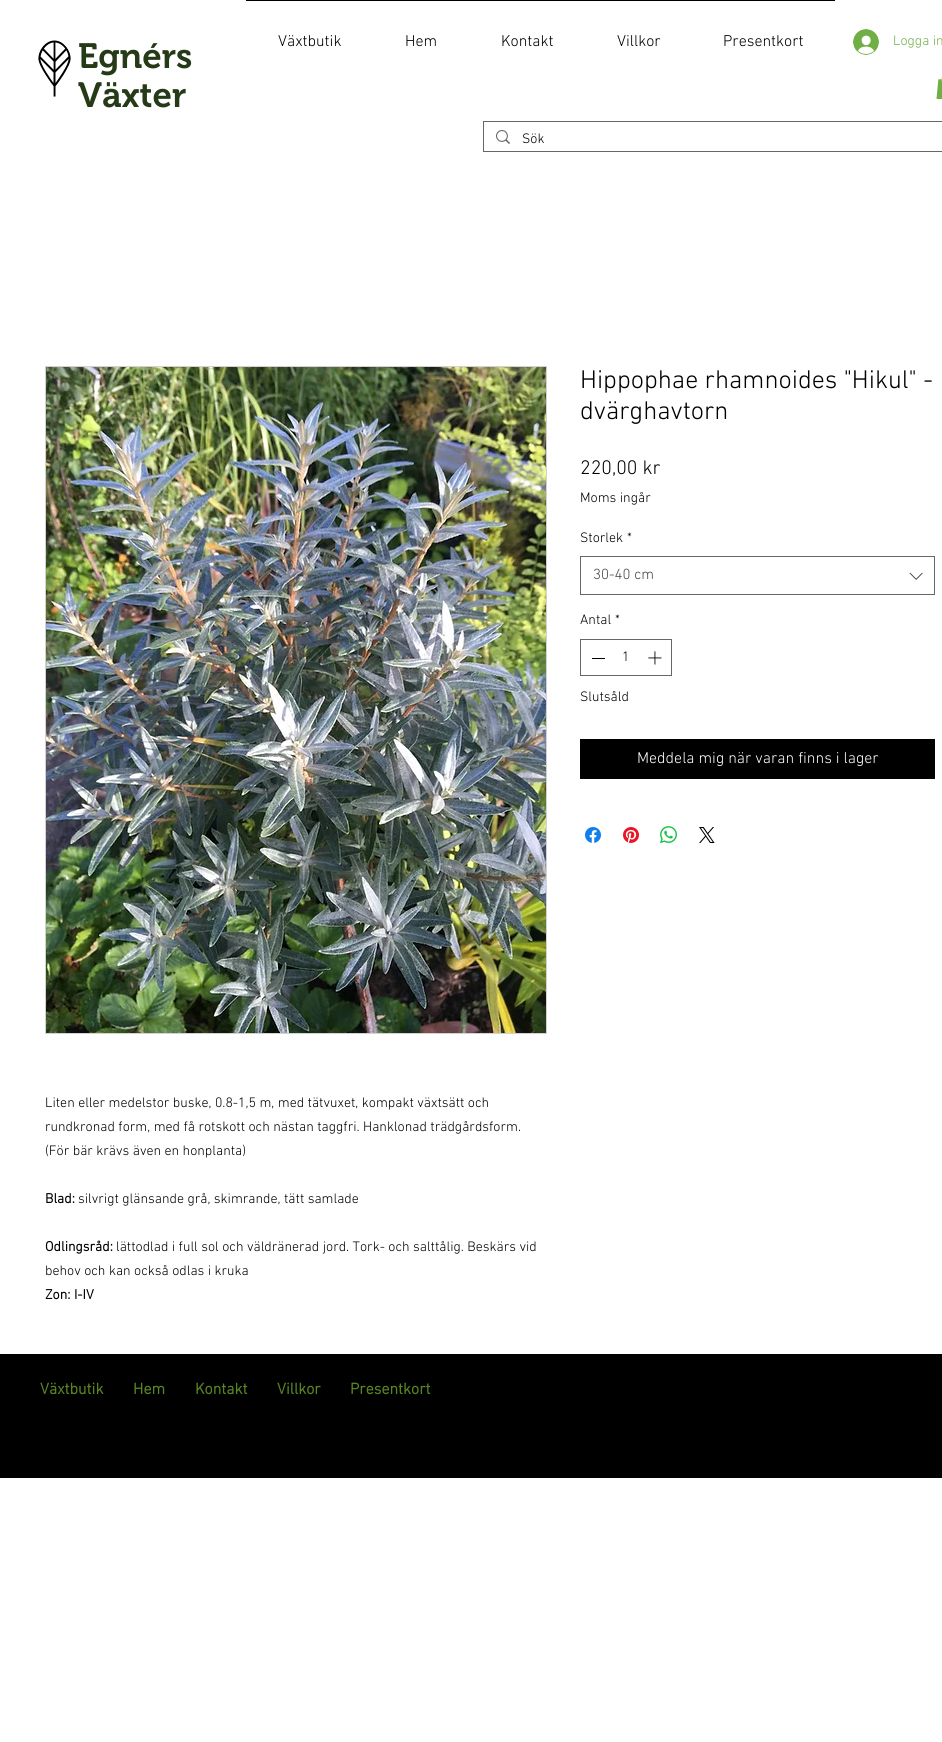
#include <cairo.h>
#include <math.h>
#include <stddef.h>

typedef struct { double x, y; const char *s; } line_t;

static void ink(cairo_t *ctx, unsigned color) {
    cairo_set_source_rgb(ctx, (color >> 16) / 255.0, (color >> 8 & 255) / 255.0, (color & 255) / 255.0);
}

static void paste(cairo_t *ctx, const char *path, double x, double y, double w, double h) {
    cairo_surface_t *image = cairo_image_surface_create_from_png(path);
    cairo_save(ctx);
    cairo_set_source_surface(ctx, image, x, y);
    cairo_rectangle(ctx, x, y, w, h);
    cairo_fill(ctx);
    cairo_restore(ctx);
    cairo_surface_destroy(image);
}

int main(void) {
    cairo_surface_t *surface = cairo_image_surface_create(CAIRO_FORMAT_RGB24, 942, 1742);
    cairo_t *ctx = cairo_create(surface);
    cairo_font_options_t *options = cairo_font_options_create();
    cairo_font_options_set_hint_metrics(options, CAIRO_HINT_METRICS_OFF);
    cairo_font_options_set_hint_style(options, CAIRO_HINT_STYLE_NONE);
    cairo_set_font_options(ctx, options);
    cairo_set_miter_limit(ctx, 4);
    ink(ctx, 0xFFFFFF);
    cairo_paint(ctx);
    paste(ctx, "media/1.png", 38, 40, 33, 57);
    cairo_select_font_face(ctx, "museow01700 SemiBold", CAIRO_FONT_SLANT_NORMAL, CAIRO_FONT_WEIGHT_NORMAL);
    cairo_set_font_size(ctx, 35);
    ink(ctx, 0x253A17);
    cairo_move_to(ctx, 78, 68);
    cairo_show_text(ctx, "Egnérs");
    cairo_move_to(ctx, 78, 107);
    cairo_show_text(ctx, "Växter");
    ink(ctx, 0x000000);
    cairo_rectangle(ctx, 246, 0, 589, 1);
    cairo_fill(ctx);
    cairo_select_font_face(ctx, "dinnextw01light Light", CAIRO_FONT_SLANT_NORMAL, CAIRO_FONT_WEIGHT_NORMAL);
    cairo_set_font_size(ctx, 16);
    {
        static const line_t items[] = {
            {278, 46, "Växtbutik"},
            {405, 46, "Hem"},
            {501, 46, "Kontakt"},
            {617, 46, "Villkor"},
            {723, 46, "Presentkort"},
        };
        for (size_t i = 0; i < sizeof items / sizeof *items; i++) {
            cairo_move_to(ctx, items[i].x, items[i].y);
            cairo_show_text(ctx, items[i].s);
        }
    }
    paste(ctx, "media/2.png", 853, 29, 26, 26);
    cairo_set_font_size(ctx, 14);
    ink(ctx, 0x6FAF46);
    cairo_move_to(ctx, 893, 45);
    cairo_show_text(ctx, "Logga in");
    paste(ctx, "media/3.png", 936, 77, 6, 23);
    cairo_rectangle(ctx, 483.5, 121.5, 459, 30);
    ink(ctx, 0x666666);
    cairo_set_line_width(ctx, 1);
    cairo_stroke(ctx);
    paste(ctx, "media/4.png", 496, 130, 14, 14);
    ink(ctx, 0x000000);
    cairo_move_to(ctx, 522, 143);
    cairo_show_text(ctx, "Sök");
    cairo_set_font_size(ctx, 26);
    cairo_move_to(ctx, 580, 388);
    cairo_show_text(ctx, "Hippophae rhamnoides \"Hikul\" -");
    cairo_move_to(ctx, 580, 419);
    cairo_show_text(ctx, "dvärghavtorn");
    cairo_set_font_size(ctx, 20);
    cairo_move_to(ctx, 580, 474);
    cairo_show_text(ctx, "220,00 kr");
    cairo_set_font_size(ctx, 14);
    {
        static const line_t items[] = {
            {580, 502, "Moms ingår"},
            {580, 542, "Storlek"},
            {627, 542, "*"},
        };
        for (size_t i = 0; i < sizeof items / sizeof *items; i++) {
            cairo_move_to(ctx, items[i].x, items[i].y);
            cairo_show_text(ctx, items[i].s);
        }
    }
    cairo_rectangle(ctx, 580.5, 556.5, 354, 38);
    ink(ctx, 0x666666);
    cairo_stroke(ctx);
    cairo_set_font_size(ctx, 15);
    ink(ctx, 0x444444);
    cairo_move_to(ctx, 593, 579);
    cairo_show_text(ctx, "30-40 cm");
    paste(ctx, "media/5.png", 909, 572, 14, 8);
    cairo_set_font_size(ctx, 14);
    ink(ctx, 0x000000);
    cairo_move_to(ctx, 580, 624);
    cairo_show_text(ctx, "Antal");
    cairo_move_to(ctx, 615, 624);
    cairo_show_text(ctx, "*");
    cairo_rectangle(ctx, 580.5, 639.5, 91, 36);
    ink(ctx, 0x666666);
    cairo_stroke(ctx);
    ink(ctx, 0x000000);
    cairo_rectangle(ctx, 592, 658, 13, 1);
    cairo_fill(ctx);
    cairo_move_to(ctx, 622, 661);
    cairo_show_text(ctx, "1");
    paste(ctx, "media/6.png", 648, 651, 14, 14);
    cairo_move_to(ctx, 580, 701);
    cairo_show_text(ctx, "Slutsåld");
    cairo_rectangle(ctx, 580, 739, 355, 40);
    cairo_fill(ctx);
    cairo_set_font_size(ctx, 16);
    ink(ctx, 0xFFFFFF);
    cairo_move_to(ctx, 637, 763);
    cairo_show_text(ctx, "Meddela mig när varan finns i lager");
    paste(ctx, "media/7.png", 585, 827, 16, 16);
    paste(ctx, "media/8.png", 623, 827, 16, 16);
    paste(ctx, "media/9.png", 660, 826, 17, 17);
    paste(ctx, "media/10.png", 699, 827, 16, 16);
    cairo_rectangle(ctx, 45.5, 366.5, 501, 667);
    ink(ctx, 0xD4D0D3);
    cairo_stroke(ctx);
    paste(ctx, "media/11.png", 46, 367, 500, 666);
    cairo_set_font_size(ctx, 14);
    ink(ctx, 0x000000);
    {
        static const line_t items[] = {
            {45, 1107, "Liten eller medelstor buske, 0.8-1,5 m, med tätvuxet, kompakt växtsätt och"},
            {45, 1131, "rundkronad form, med få rotskott och nästan taggfri. Hanklonad trädgårdsform."},
            {45, 1155, "(För bär krävs även en honplanta)"},
        };
        for (size_t i = 0; i < sizeof items / sizeof *items; i++) {
            cairo_move_to(ctx, items[i].x, items[i].y);
            cairo_show_text(ctx, items[i].s);
        }
    }
    cairo_select_font_face(ctx, "dinnextw01light", CAIRO_FONT_SLANT_NORMAL, CAIRO_FONT_WEIGHT_BOLD);
    cairo_move_to(ctx, 45, 1203);
    cairo_show_text(ctx, "Blad:");
    cairo_select_font_face(ctx, "dinnextw01light Light", CAIRO_FONT_SLANT_NORMAL, CAIRO_FONT_WEIGHT_NORMAL);
    cairo_move_to(ctx, 78, 1203);
    cairo_show_text(ctx, "silvrigt glänsande grå, skimrande, tätt samlade");
    cairo_select_font_face(ctx, "dinnextw01light", CAIRO_FONT_SLANT_NORMAL, CAIRO_FONT_WEIGHT_BOLD);
    cairo_move_to(ctx, 45, 1251);
    cairo_show_text(ctx, "Odlingsråd:");
    cairo_select_font_face(ctx, "dinnextw01light Light", CAIRO_FONT_SLANT_NORMAL, CAIRO_FONT_WEIGHT_NORMAL);
    cairo_move_to(ctx, 116, 1251);
    cairo_show_text(ctx, "lättodlad i full sol och väldränerad jord. Tork- och salttålig. Beskärs vid");
    cairo_move_to(ctx, 45, 1275);
    cairo_show_text(ctx, "behov och kan också odlas i kruka");
    cairo_select_font_face(ctx, "dinnextw01light", CAIRO_FONT_SLANT_NORMAL, CAIRO_FONT_WEIGHT_BOLD);
    cairo_move_to(ctx, 45, 1299);
    cairo_show_text(ctx, "Zon: I-IV");
    cairo_rectangle(ctx, 0, 1354, 942, 124);
    cairo_fill(ctx);
    cairo_set_font_size(ctx, 16);
    ink(ctx, 0x588522);
    {
        static const line_t items[] = {
            {40, 1394, "Växtbutik"},
            {133, 1394, "Hem"},
            {195, 1394, "Kontakt"},
            {277, 1394, "Villkor"},
            {350, 1394, "Presentkort"},
        };
        for (size_t i = 0; i < sizeof items / sizeof *items; i++) {
            cairo_move_to(ctx, items[i].x, items[i].y);
            cairo_show_text(ctx, items[i].s);
        }
    }
    cairo_surface_write_to_png(surface, "image.png");
    cairo_font_options_destroy(options);
    cairo_destroy(ctx);
    cairo_surface_destroy(surface);
    return 0;
}
